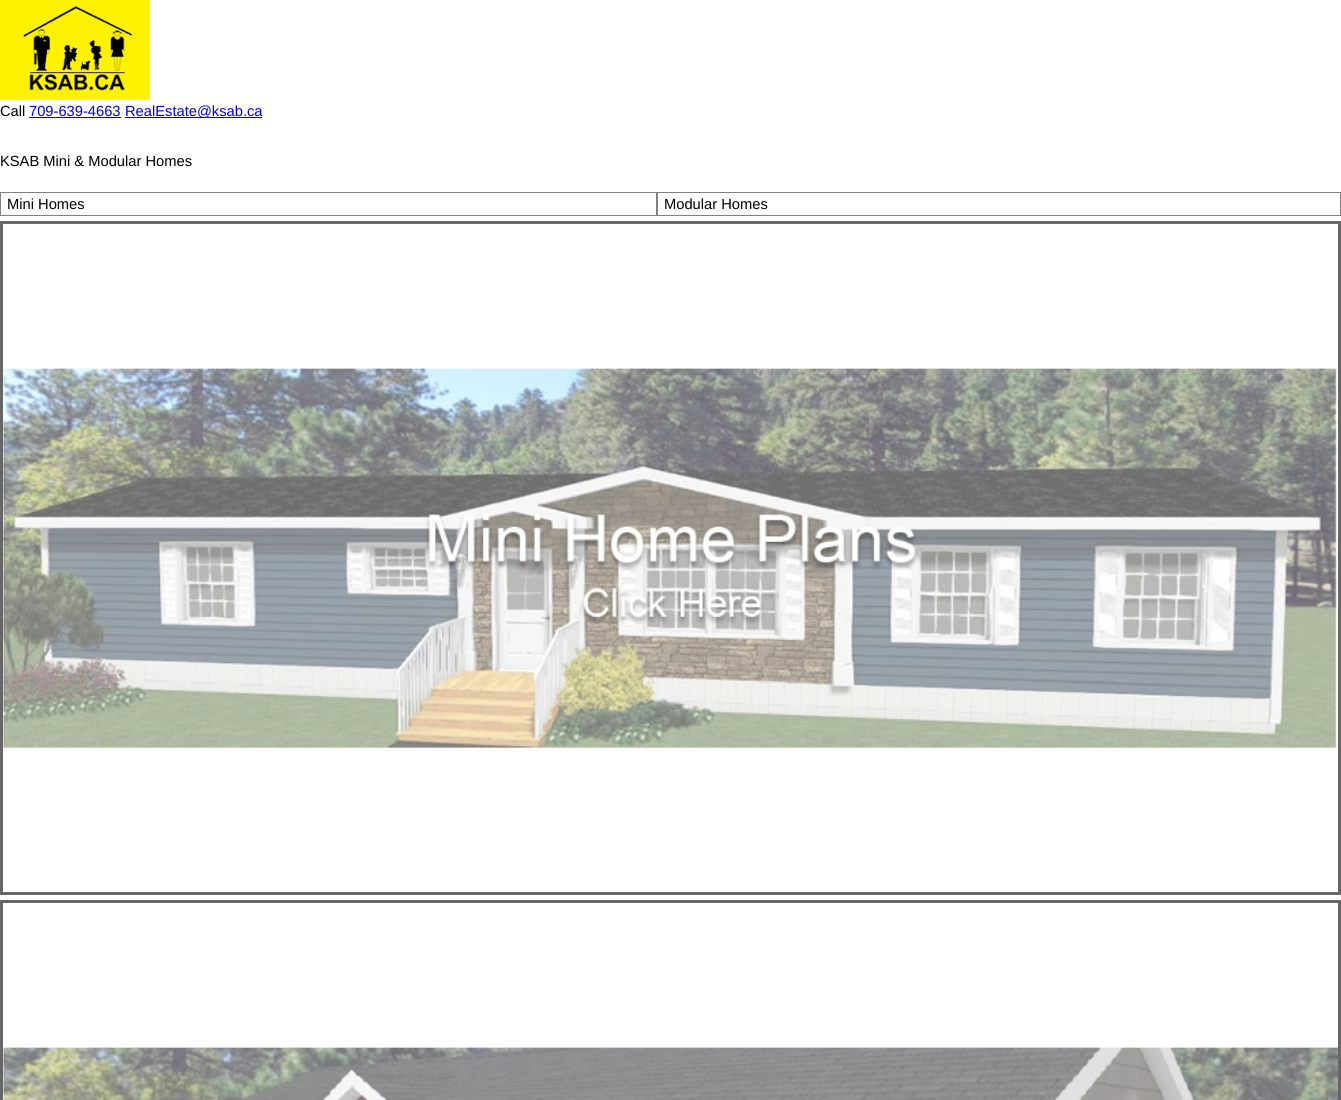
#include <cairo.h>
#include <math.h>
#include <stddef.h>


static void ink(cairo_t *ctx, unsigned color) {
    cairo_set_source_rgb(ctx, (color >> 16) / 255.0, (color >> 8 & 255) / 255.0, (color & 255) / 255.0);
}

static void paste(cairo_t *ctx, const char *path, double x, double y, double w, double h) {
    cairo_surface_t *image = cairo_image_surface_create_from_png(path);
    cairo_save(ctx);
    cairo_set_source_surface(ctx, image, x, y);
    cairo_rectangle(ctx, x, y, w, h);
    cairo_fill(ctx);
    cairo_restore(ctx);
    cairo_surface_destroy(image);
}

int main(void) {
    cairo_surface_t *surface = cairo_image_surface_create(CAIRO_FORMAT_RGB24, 1341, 1100);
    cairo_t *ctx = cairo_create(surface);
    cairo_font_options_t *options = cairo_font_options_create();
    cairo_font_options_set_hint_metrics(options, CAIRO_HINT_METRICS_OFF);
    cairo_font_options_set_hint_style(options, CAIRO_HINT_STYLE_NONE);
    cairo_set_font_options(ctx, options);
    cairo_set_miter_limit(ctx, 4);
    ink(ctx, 0xFFFFFF);
    cairo_paint(ctx);
    paste(ctx, "media/1.png", 0, 0, 150, 100);
    cairo_select_font_face(ctx, "Liberation Sans", CAIRO_FONT_SLANT_NORMAL, CAIRO_FONT_WEIGHT_NORMAL);
    cairo_set_font_size(ctx, 14.7);
    ink(ctx, 0x000000);
    cairo_move_to(ctx, 0, 116);
    cairo_show_text(ctx, "Call");
    ink(ctx, 0x0000EE);
    cairo_move_to(ctx, 29, 116);
    cairo_show_text(ctx, "709-639-4663");
    cairo_rectangle(ctx, 29, 117, 92, 1);
    cairo_fill(ctx);
    cairo_rectangle(ctx, 125, 117, 137, 1);
    cairo_fill(ctx);
    cairo_move_to(ctx, 125, 116);
    cairo_show_text(ctx, "RealEstate@ksab.ca");
    ink(ctx, 0x000000);
    cairo_move_to(ctx, 0, 166);
    cairo_show_text(ctx, "KSAB Mini & Modular Homes");
    cairo_rectangle(ctx, 0.5, 192.5, 656, 23);
    ink(ctx, 0x808080);
    cairo_set_line_width(ctx, 1);
    cairo_stroke(ctx);
    ink(ctx, 0x000000);
    cairo_move_to(ctx, 7, 209);
    cairo_show_text(ctx, "Mini Homes");
    cairo_rectangle(ctx, 657.5, 192.5, 683, 23);
    ink(ctx, 0x808080);
    cairo_stroke(ctx);
    ink(ctx, 0x000000);
    cairo_move_to(ctx, 664, 209);
    cairo_show_text(ctx, "Modular Homes");
    cairo_rectangle(ctx, 1.5, 222.5, 1338, 671);
    ink(ctx, 0x666666);
    cairo_set_line_width(ctx, 3);
    cairo_stroke(ctx);
    paste(ctx, "media/2.png", 3, 368, 1335, 380);
    cairo_rectangle(ctx, 1.5, 901.5, 1338, 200);
    cairo_stroke(ctx);
    paste(ctx, "media/3.png", 3, 1047, 1335, 53);
    cairo_surface_write_to_png(surface, "image.png");
    cairo_font_options_destroy(options);
    cairo_destroy(ctx);
    cairo_surface_destroy(surface);
    return 0;
}
